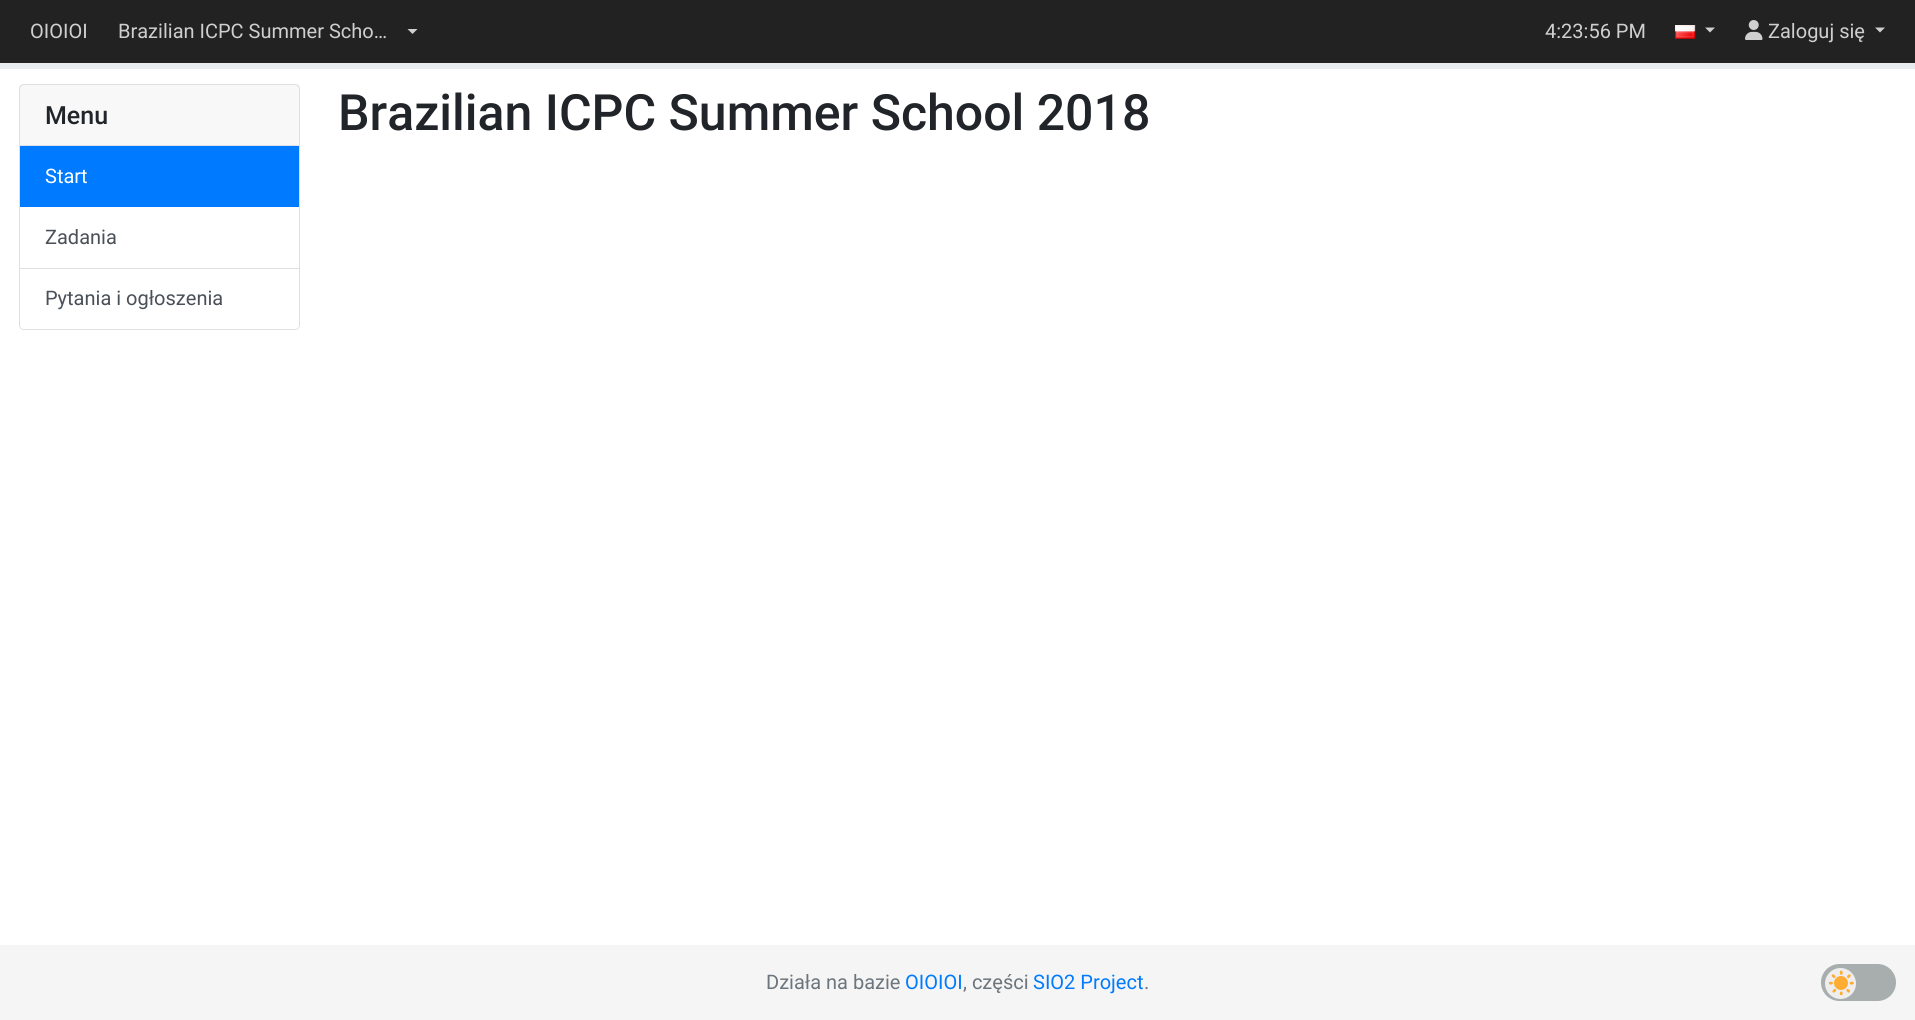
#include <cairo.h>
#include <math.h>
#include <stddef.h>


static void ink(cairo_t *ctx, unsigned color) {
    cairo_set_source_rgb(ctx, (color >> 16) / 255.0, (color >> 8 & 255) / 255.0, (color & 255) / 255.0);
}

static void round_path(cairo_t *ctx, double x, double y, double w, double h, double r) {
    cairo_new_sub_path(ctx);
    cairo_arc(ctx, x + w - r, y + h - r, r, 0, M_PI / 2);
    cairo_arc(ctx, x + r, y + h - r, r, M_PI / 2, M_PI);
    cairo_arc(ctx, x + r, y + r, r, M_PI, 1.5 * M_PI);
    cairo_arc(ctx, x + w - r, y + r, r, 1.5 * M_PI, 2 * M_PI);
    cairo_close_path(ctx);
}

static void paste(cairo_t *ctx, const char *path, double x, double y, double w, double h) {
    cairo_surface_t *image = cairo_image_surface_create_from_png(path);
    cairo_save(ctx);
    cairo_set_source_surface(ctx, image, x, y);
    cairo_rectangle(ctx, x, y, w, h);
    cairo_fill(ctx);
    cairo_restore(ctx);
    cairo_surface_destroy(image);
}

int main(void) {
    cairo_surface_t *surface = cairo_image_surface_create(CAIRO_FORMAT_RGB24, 1915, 1020);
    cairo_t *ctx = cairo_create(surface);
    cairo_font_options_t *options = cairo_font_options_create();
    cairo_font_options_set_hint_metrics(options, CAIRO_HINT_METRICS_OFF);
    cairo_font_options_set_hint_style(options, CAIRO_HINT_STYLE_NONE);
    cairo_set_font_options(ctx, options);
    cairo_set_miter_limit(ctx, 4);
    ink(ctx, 0xFFFFFF);
    cairo_paint(ctx);
    ink(ctx, 0x222222);
    cairo_rectangle(ctx, 0, 0, 1915, 63);
    cairo_fill(ctx);
    cairo_select_font_face(ctx, "Roboto", CAIRO_FONT_SLANT_NORMAL, CAIRO_FONT_WEIGHT_NORMAL);
    cairo_set_font_size(ctx, 20);
    ink(ctx, 0xCFCFCF);
    cairo_move_to(ctx, 30, 38);
    cairo_show_text(ctx, "OIOIOI");
    cairo_move_to(ctx, 118, 38);
    cairo_show_text(ctx, "Brazilian ICPC Summer Scho…");
    cairo_new_path(ctx);
    cairo_move_to(ctx, 407.5, 29);
    cairo_line_to(ctx, 417.5, 29);
    cairo_line_to(ctx, 412.5, 34);
    cairo_close_path(ctx);
    cairo_fill(ctx);
    cairo_move_to(ctx, 1545, 38);
    cairo_show_text(ctx, "4:23:56 PM");
    paste(ctx, "media/1.png", 1675, 25, 21, 14);
    cairo_new_path(ctx);
    cairo_move_to(ctx, 1705, 27.5);
    cairo_line_to(ctx, 1715, 27.5);
    cairo_line_to(ctx, 1710, 32.5);
    cairo_close_path(ctx);
    cairo_fill(ctx);
    paste(ctx, "media/2.png", 1745, 20, 18, 20);
    cairo_move_to(ctx, 1768, 38);
    cairo_show_text(ctx, "Zaloguj się");
    cairo_new_path(ctx);
    cairo_move_to(ctx, 1875, 27.5);
    cairo_line_to(ctx, 1885, 27.5);
    cairo_line_to(ctx, 1880, 32.5);
    cairo_close_path(ctx);
    cairo_fill(ctx);
    ink(ctx, 0xE9ECEF);
    cairo_rectangle(ctx, 0, 63, 1915, 6);
    cairo_fill(ctx);
    round_path(ctx, 19.5, 84.5, 280, 245, 4.5);
    ink(ctx, 0xDFDFDF);
    cairo_set_line_width(ctx, 1);
    cairo_stroke(ctx);
    cairo_set_source_rgba(ctx, 0, 0, 0, 0.03);
    cairo_rectangle(ctx, 20, 85, 279, 60);
    cairo_fill(ctx);
    cairo_select_font_face(ctx, "Roboto Medium", CAIRO_FONT_SLANT_NORMAL, CAIRO_FONT_WEIGHT_NORMAL);
    cairo_set_font_size(ctx, 25);
    ink(ctx, 0x212529);
    cairo_move_to(ctx, 45, 124);
    cairo_show_text(ctx, "Menu");
    ink(ctx, 0xDEE2E6);
    cairo_rectangle(ctx, 20, 145, 279, 1);
    cairo_fill(ctx);
    ink(ctx, 0x007BFF);
    cairo_rectangle(ctx, 20, 146, 279, 61);
    cairo_fill(ctx);
    cairo_select_font_face(ctx, "Roboto", CAIRO_FONT_SLANT_NORMAL, CAIRO_FONT_WEIGHT_NORMAL);
    cairo_set_font_size(ctx, 20);
    ink(ctx, 0xFFFFFF);
    cairo_move_to(ctx, 45, 183);
    cairo_show_text(ctx, "Start");
    ink(ctx, 0xDFDFDF);
    cairo_rectangle(ctx, 20, 268, 279, 1);
    cairo_fill(ctx);
    ink(ctx, 0x495057);
    cairo_move_to(ctx, 45, 244);
    cairo_show_text(ctx, "Zadania");
    ink(ctx, 0xFFFFFF);
    cairo_new_path(ctx);
    cairo_move_to(ctx, 20, 269);
    cairo_line_to(ctx, 299, 269);
    cairo_line_to(ctx, 299, 325);
    cairo_curve_to(ctx, 299, 327, 297, 329, 295, 329);
    cairo_line_to(ctx, 24, 329);
    cairo_curve_to(ctx, 22, 329, 20, 327, 20, 325);
    cairo_close_path(ctx);
    cairo_fill(ctx);
    ink(ctx, 0x495057);
    cairo_move_to(ctx, 45, 305);
    cairo_show_text(ctx, "Pytania i ogłoszenia");
    cairo_select_font_face(ctx, "Roboto Medium", CAIRO_FONT_SLANT_NORMAL, CAIRO_FONT_WEIGHT_NORMAL);
    cairo_set_font_size(ctx, 50);
    ink(ctx, 0x212529);
    cairo_move_to(ctx, 338, 130);
    cairo_show_text(ctx, "Brazilian ICPC Summer School 2018");
    ink(ctx, 0xF5F5F5);
    cairo_rectangle(ctx, 0, 945, 1915, 75);
    cairo_fill(ctx);
    cairo_select_font_face(ctx, "Roboto", CAIRO_FONT_SLANT_NORMAL, CAIRO_FONT_WEIGHT_NORMAL);
    cairo_set_font_size(ctx, 20);
    ink(ctx, 0x6C757D);
    cairo_move_to(ctx, 766, 989);
    cairo_show_text(ctx, "Działa na bazie");
    ink(ctx, 0x007BFF);
    cairo_move_to(ctx, 905, 989);
    cairo_show_text(ctx, "OIOIOI");
    ink(ctx, 0x6C757D);
    cairo_move_to(ctx, 963, 989);
    cairo_show_text(ctx, ", części");
    ink(ctx, 0x007BFF);
    cairo_move_to(ctx, 1033, 989);
    cairo_show_text(ctx, "SIO2 Project");
    ink(ctx, 0x6C757D);
    cairo_move_to(ctx, 1144, 989);
    cairo_show_text(ctx, ".");
    ink(ctx, 0xA8ADAD);
    round_path(ctx, 1821, 964, 75, 37, 18.5);
    cairo_fill(ctx);
    ink(ctx, 0xEEEEEE);
    cairo_arc(ctx, 1840.5, 983.5, 15.5, 0, 2 * M_PI);
    cairo_fill(ctx);
    paste(ctx, "media/3.png", 1829, 970, 25, 25);
    cairo_surface_write_to_png(surface, "image.png");
    cairo_font_options_destroy(options);
    cairo_destroy(ctx);
    cairo_surface_destroy(surface);
    return 0;
}
